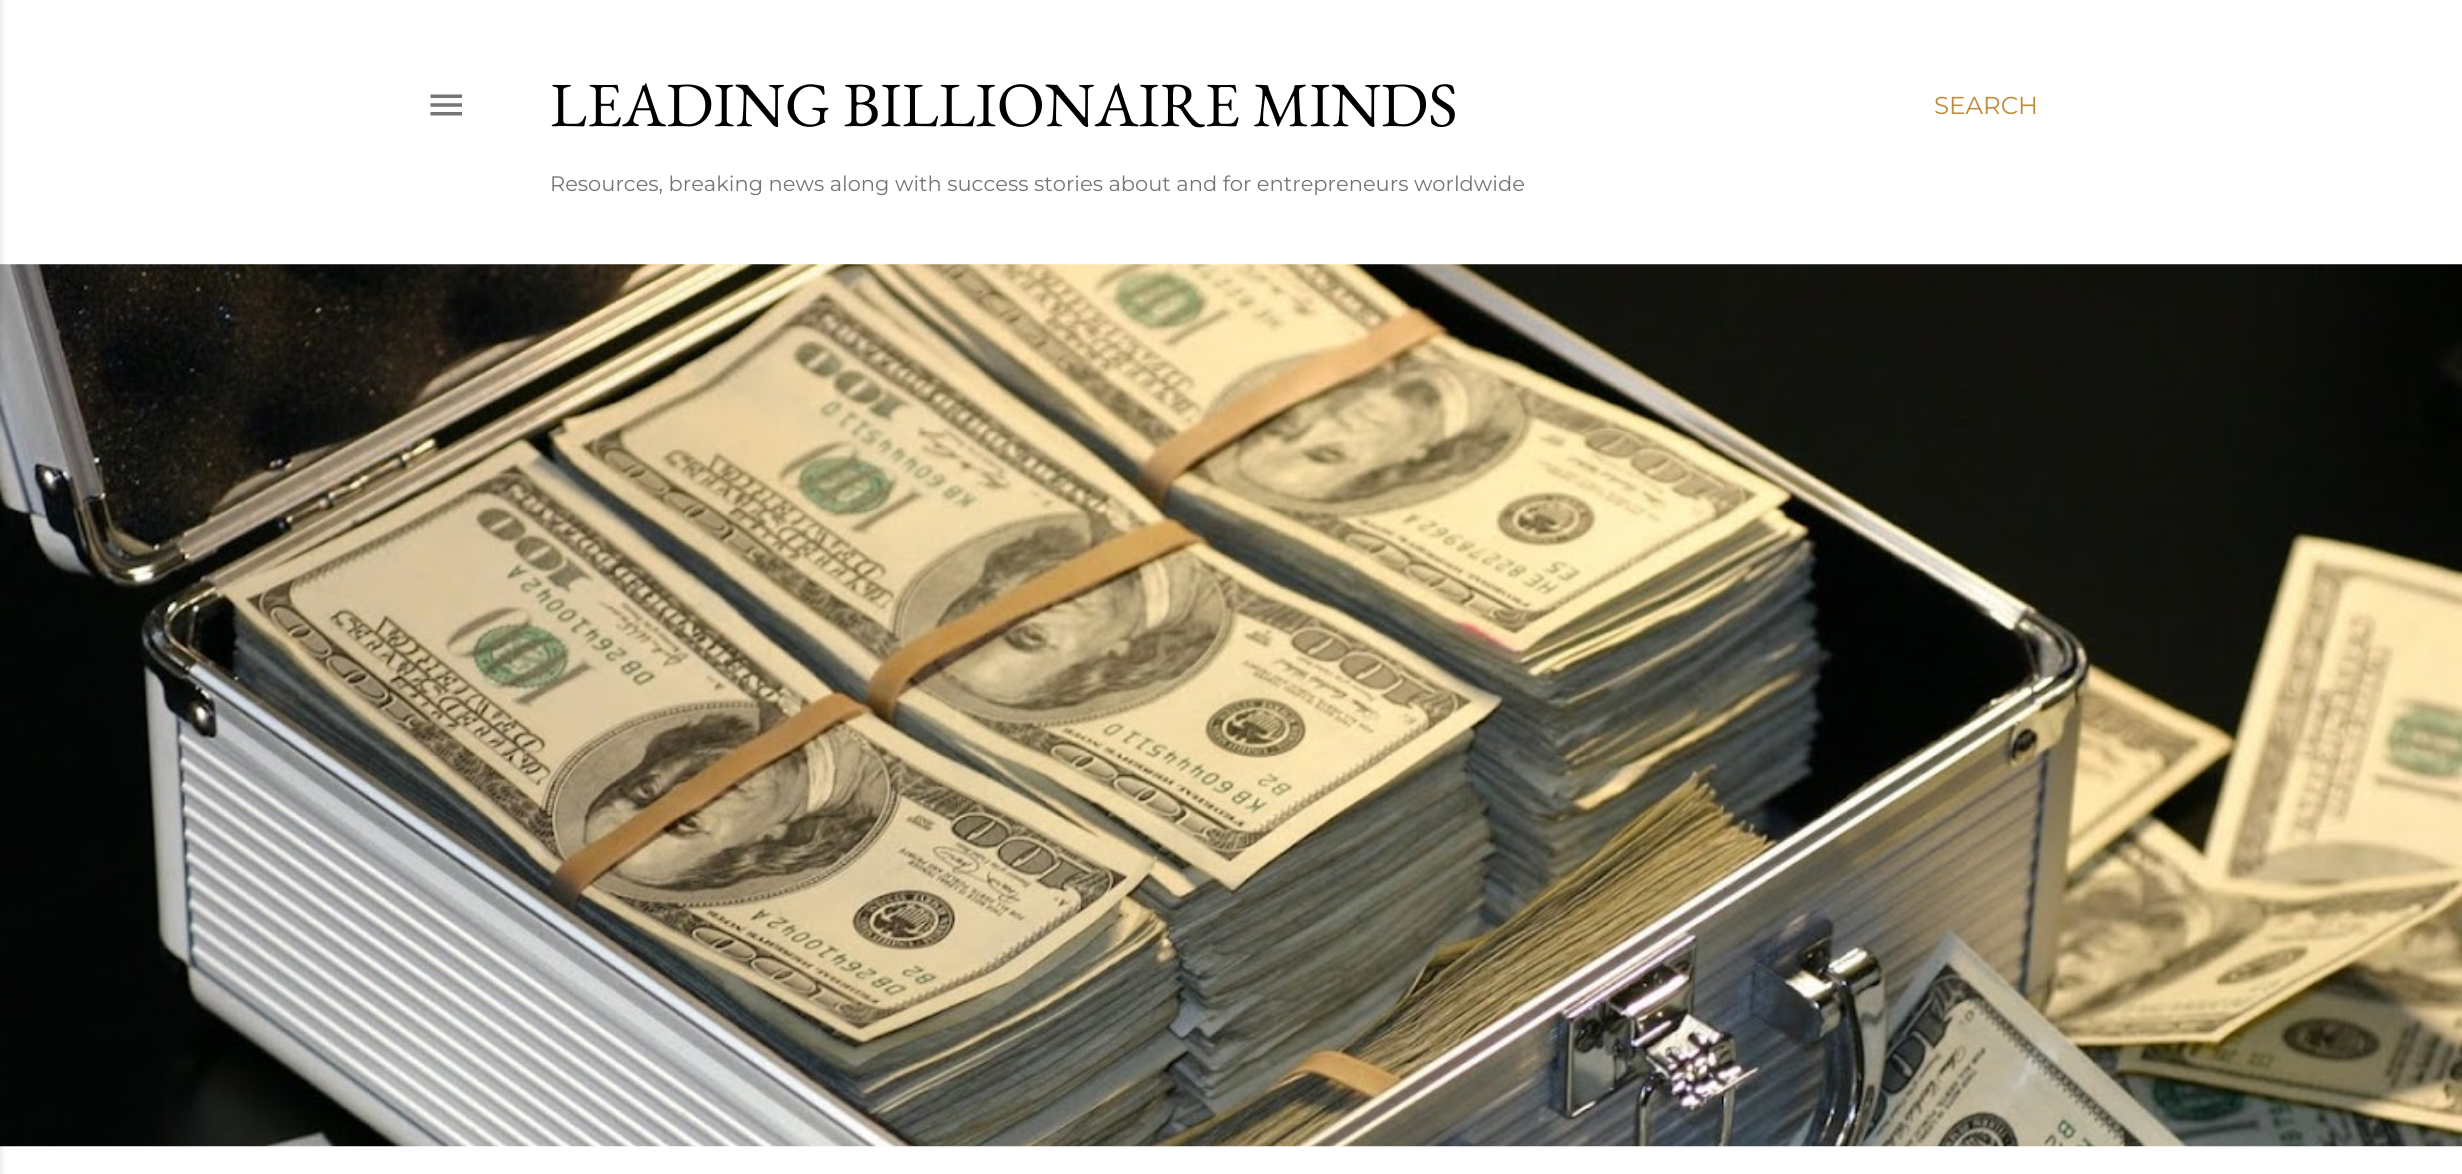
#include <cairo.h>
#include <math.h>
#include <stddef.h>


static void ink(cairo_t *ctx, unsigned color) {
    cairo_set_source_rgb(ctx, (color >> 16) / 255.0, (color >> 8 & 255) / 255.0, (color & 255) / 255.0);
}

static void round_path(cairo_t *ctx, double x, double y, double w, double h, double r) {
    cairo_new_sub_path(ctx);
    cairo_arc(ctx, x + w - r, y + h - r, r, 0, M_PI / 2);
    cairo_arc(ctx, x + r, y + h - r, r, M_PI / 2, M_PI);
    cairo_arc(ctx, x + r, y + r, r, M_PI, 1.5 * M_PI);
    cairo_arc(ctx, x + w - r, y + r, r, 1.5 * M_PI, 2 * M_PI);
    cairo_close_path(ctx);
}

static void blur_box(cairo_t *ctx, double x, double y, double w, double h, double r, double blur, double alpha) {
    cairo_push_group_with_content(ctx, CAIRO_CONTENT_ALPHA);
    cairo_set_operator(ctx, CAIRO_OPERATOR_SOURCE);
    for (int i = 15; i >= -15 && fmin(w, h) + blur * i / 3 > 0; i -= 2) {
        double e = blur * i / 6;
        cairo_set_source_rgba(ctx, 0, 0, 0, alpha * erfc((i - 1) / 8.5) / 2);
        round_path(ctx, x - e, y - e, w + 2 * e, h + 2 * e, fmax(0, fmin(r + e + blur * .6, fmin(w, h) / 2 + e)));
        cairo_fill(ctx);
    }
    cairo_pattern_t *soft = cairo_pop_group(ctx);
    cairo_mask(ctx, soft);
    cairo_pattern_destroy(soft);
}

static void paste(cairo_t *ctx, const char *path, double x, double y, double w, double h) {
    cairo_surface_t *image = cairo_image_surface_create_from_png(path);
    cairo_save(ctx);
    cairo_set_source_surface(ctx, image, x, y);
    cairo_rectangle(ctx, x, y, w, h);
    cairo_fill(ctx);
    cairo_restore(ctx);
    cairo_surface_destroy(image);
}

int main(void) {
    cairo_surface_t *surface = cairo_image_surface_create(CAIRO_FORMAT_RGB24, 2462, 1174);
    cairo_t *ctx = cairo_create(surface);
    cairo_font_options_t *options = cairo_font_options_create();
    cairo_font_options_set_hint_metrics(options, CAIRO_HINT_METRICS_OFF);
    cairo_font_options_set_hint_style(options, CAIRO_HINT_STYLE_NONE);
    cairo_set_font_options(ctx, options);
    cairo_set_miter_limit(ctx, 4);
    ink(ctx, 0xFFFFFF);
    cairo_paint(ctx);
    paste(ctx, "media/2.png", 0, 264, 2462, 883);
    ink(ctx, 0x000000);
    blur_box(ctx, -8, 0, 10, 1174, 0, 2.5, 0.1);
    paste(ctx, "media/1.png", 430, 94, 32, 22);
    cairo_select_font_face(ctx, "EB Garamond", CAIRO_FONT_SLANT_NORMAL, CAIRO_FONT_WEIGHT_NORMAL);
    cairo_set_font_size(ctx, 63);
    ink(ctx, 0x000000);
    cairo_move_to(ctx, 550, 126);
    cairo_show_text(ctx, "LEADING BILLIONAIRE MINDS");
    cairo_select_font_face(ctx, "Montserrat Thin", CAIRO_FONT_SLANT_NORMAL, CAIRO_FONT_WEIGHT_NORMAL);
    cairo_set_font_size(ctx, 21);
    ink(ctx, 0x757575);
    cairo_move_to(ctx, 550, 191);
    cairo_show_text(ctx, "Resources, breaking news along with success stories about and for entrepreneurs worldwide");
    cairo_set_font_size(ctx, 24.5);
    ink(ctx, 0xBF8B38);
    cairo_move_to(ctx, 1934, 114);
    cairo_show_text(ctx, "SEARCH");
    cairo_surface_write_to_png(surface, "image.png");
    cairo_font_options_destroy(options);
    cairo_destroy(ctx);
    cairo_surface_destroy(surface);
    return 0;
}
